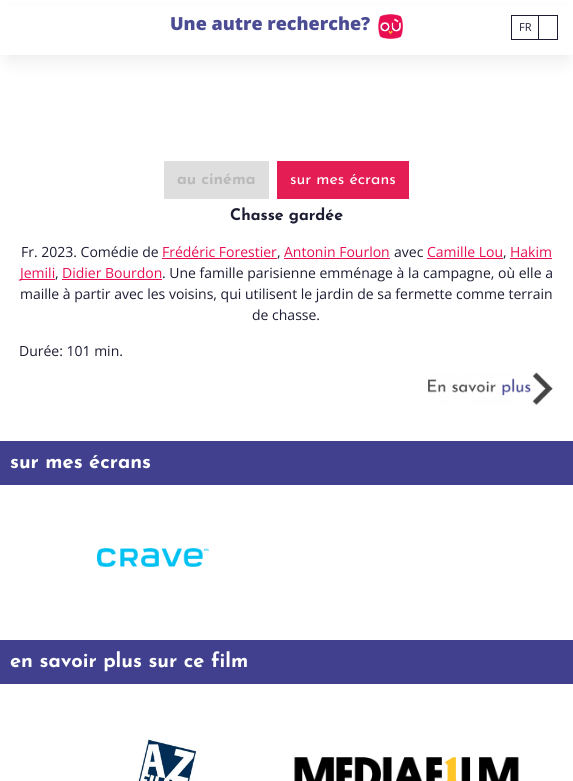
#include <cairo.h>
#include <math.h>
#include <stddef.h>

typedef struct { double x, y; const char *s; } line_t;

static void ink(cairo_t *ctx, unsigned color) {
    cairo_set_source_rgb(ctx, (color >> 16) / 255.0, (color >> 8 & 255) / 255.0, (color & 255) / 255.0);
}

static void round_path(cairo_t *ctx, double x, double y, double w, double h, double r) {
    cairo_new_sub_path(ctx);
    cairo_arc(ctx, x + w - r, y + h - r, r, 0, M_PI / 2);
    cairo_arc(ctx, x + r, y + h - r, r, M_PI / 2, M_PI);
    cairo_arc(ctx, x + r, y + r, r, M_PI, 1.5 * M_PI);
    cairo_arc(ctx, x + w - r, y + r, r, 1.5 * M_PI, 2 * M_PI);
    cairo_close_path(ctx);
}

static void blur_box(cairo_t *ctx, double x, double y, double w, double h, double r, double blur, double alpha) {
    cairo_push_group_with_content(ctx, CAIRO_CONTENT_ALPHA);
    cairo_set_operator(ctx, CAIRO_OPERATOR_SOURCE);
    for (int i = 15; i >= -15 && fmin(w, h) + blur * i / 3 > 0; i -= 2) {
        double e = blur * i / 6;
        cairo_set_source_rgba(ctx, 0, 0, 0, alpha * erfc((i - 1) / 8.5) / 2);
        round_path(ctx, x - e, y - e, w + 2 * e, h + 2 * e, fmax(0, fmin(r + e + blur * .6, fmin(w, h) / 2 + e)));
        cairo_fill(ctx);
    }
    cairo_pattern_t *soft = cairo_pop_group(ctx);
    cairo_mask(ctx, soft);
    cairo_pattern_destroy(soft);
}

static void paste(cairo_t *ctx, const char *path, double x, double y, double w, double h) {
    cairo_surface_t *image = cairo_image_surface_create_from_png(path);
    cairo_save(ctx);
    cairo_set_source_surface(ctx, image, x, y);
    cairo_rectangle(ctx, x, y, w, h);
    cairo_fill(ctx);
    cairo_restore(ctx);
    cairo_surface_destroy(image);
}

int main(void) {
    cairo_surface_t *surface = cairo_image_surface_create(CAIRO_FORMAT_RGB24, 573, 781);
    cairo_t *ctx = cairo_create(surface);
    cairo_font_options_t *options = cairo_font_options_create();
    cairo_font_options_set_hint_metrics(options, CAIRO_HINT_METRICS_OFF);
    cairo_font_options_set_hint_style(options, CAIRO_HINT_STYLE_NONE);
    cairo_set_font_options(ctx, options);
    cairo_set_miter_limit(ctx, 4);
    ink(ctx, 0xFFFFFF);
    cairo_paint(ctx);
    ink(ctx, 0x000000);
    blur_box(ctx, 9, 19, 557, 39, 0, 10, 0.1);
    ink(ctx, 0xFFFFFF);
    cairo_rectangle(ctx, 0, 6, 573, 49);
    cairo_fill(ctx);
    cairo_select_font_face(ctx, "Open Sans ExtraBold", CAIRO_FONT_SLANT_NORMAL, CAIRO_FONT_WEIGHT_NORMAL);
    cairo_set_font_size(ctx, 18);
    ink(ctx, 0x4C4C95);
    cairo_move_to(ctx, 170, 30);
    cairo_show_text(ctx, "Une autre recherche?");
    paste(ctx, "media/1.png", 378, 14, 25, 25);
    cairo_rectangle(ctx, 511.5, 15.5, 46, 24);
    ink(ctx, 0x1C1C33);
    cairo_set_line_width(ctx, 1);
    cairo_stroke(ctx);
    cairo_select_font_face(ctx, "Open Sans", CAIRO_FONT_SLANT_NORMAL, CAIRO_FONT_WEIGHT_NORMAL);
    cairo_set_font_size(ctx, 11);
    cairo_move_to(ctx, 519, 31);
    cairo_show_text(ctx, "FR");
    cairo_rectangle(ctx, 538, 16, 1, 23);
    cairo_fill(ctx);
    ink(ctx, 0xDEDEDE);
    cairo_rectangle(ctx, 164, 161, 105, 38);
    cairo_fill(ctx);
    cairo_select_font_face(ctx, "Josefin Sans", CAIRO_FONT_SLANT_NORMAL, CAIRO_FONT_WEIGHT_BOLD);
    cairo_set_font_size(ctx, 16);
    ink(ctx, 0xBABABA);
    cairo_move_to(ctx, 177, 184);
    cairo_show_text(ctx, "au cinéma");
    ink(ctx, 0xE41D55);
    cairo_rectangle(ctx, 277, 161, 132, 38);
    cairo_fill(ctx);
    cairo_select_font_face(ctx, "Josefin Sans", CAIRO_FONT_SLANT_NORMAL, CAIRO_FONT_WEIGHT_NORMAL);
    ink(ctx, 0xFFFFFF);
    cairo_move_to(ctx, 290, 184);
    cairo_show_text(ctx, "sur mes écrans");
    cairo_select_font_face(ctx, "Josefin Sans", CAIRO_FONT_SLANT_NORMAL, CAIRO_FONT_WEIGHT_BOLD);
    ink(ctx, 0x1C1C33);
    cairo_move_to(ctx, 230, 220);
    cairo_show_text(ctx, "Chasse gardée");
    cairo_select_font_face(ctx, "Open Sans", CAIRO_FONT_SLANT_NORMAL, CAIRO_FONT_WEIGHT_NORMAL);
    cairo_set_font_size(ctx, 14);
    cairo_move_to(ctx, 21, 257);
    cairo_show_text(ctx, "Fr. 2023. Comédie de");
    ink(ctx, 0xE90E52);
    cairo_move_to(ctx, 162, 257);
    cairo_show_text(ctx, "Frédéric Forestier");
    cairo_rectangle(ctx, 162, 258, 115, 1);
    cairo_fill(ctx);
    ink(ctx, 0x1C1C33);
    cairo_move_to(ctx, 277, 257);
    cairo_show_text(ctx, ",");
    ink(ctx, 0xE90E52);
    cairo_move_to(ctx, 284, 257);
    cairo_show_text(ctx, "Antonin Fourlon");
    cairo_rectangle(ctx, 284, 258, 106, 1);
    cairo_fill(ctx);
    ink(ctx, 0x1C1C33);
    cairo_move_to(ctx, 394, 257);
    cairo_show_text(ctx, "avec");
    ink(ctx, 0xE90E52);
    cairo_move_to(ctx, 427, 257);
    cairo_show_text(ctx, "Camille Lou");
    cairo_rectangle(ctx, 427, 258, 76, 1);
    cairo_fill(ctx);
    ink(ctx, 0x1C1C33);
    cairo_move_to(ctx, 503, 257);
    cairo_show_text(ctx, ",");
    ink(ctx, 0xE90E52);
    cairo_move_to(ctx, 510, 257);
    cairo_show_text(ctx, "Hakim");
    cairo_rectangle(ctx, 510, 258, 42, 1);
    cairo_fill(ctx);
    cairo_rectangle(ctx, 20, 279, 35, 1);
    cairo_fill(ctx);
    cairo_move_to(ctx, 20, 278);
    cairo_show_text(ctx, "Jemili");
    ink(ctx, 0x1C1C33);
    cairo_move_to(ctx, 55, 278);
    cairo_show_text(ctx, ",");
    ink(ctx, 0xE90E52);
    cairo_move_to(ctx, 62, 278);
    cairo_show_text(ctx, "Didier Bourdon");
    cairo_rectangle(ctx, 62, 279, 100, 1);
    cairo_fill(ctx);
    ink(ctx, 0x1C1C33);
    {
        static const line_t items[] = {
            {162, 278, ". Une famille parisienne emménage à la campagne, où elle a"},
            {20, 299, "maille à partir avec les voisins, qui utilisent le jardin de sa fermette comme terrain"},
            {252, 320, "de chasse."},
            {19, 356, "Durée: 101 min."},
        };
        for (size_t i = 0; i < sizeof items / sizeof *items; i++) {
            cairo_move_to(ctx, items[i].x, items[i].y);
            cairo_show_text(ctx, items[i].s);
        }
    }
    paste(ctx, "media/2.png", 428, 372, 125, 33);
    ink(ctx, 0x40408E);
    cairo_rectangle(ctx, 0, 441, 573, 44);
    cairo_fill(ctx);
    cairo_select_font_face(ctx, "Josefin Sans", CAIRO_FONT_SLANT_NORMAL, CAIRO_FONT_WEIGHT_BOLD);
    cairo_set_font_size(ctx, 20);
    ink(ctx, 0xFFFFFF);
    cairo_move_to(ctx, 10, 468);
    cairo_show_text(ctx, "sur mes écrans");
    paste(ctx, "media/3.png", 97, 548, 112, 19);
    ink(ctx, 0x40408E);
    cairo_rectangle(ctx, 0, 640, 573, 44);
    cairo_fill(ctx);
    ink(ctx, 0xFFFFFF);
    cairo_move_to(ctx, 10, 667);
    cairo_show_text(ctx, "en savoir plus sur ce film");
    paste(ctx, "media/4.png", 137, 739, 62, 42);
    paste(ctx, "media/5.png", 294, 757, 225, 24);
    cairo_surface_write_to_png(surface, "image.png");
    cairo_font_options_destroy(options);
    cairo_destroy(ctx);
    cairo_surface_destroy(surface);
    return 0;
}
